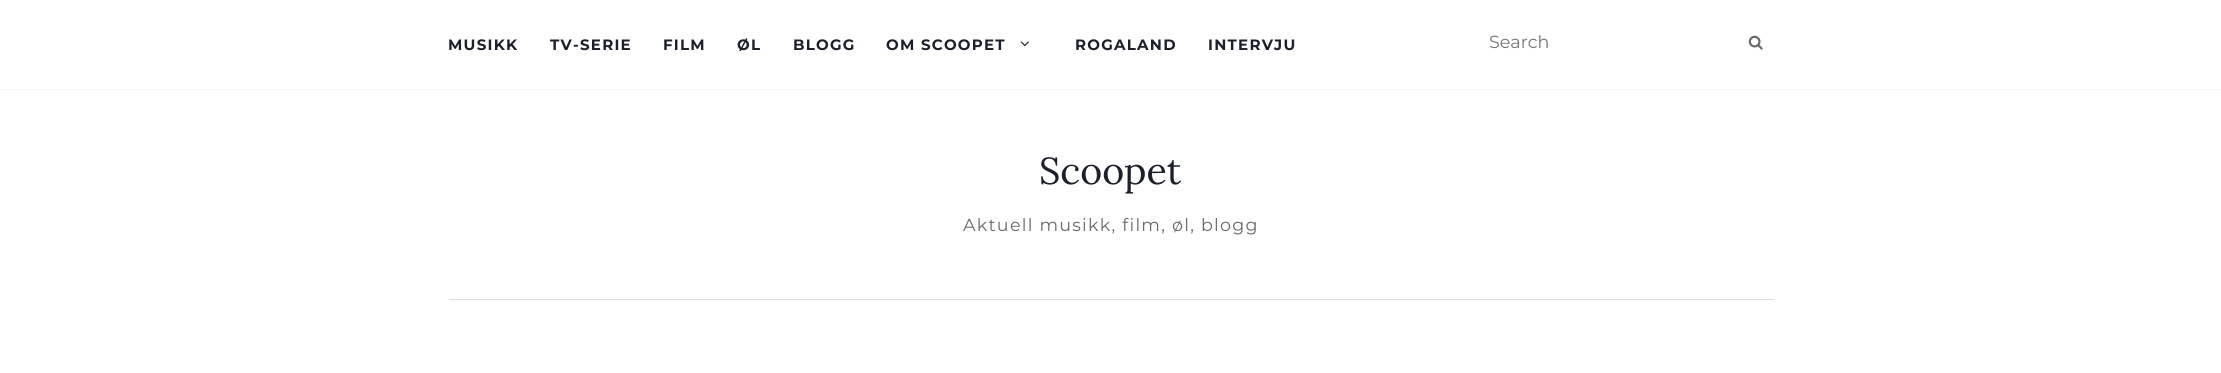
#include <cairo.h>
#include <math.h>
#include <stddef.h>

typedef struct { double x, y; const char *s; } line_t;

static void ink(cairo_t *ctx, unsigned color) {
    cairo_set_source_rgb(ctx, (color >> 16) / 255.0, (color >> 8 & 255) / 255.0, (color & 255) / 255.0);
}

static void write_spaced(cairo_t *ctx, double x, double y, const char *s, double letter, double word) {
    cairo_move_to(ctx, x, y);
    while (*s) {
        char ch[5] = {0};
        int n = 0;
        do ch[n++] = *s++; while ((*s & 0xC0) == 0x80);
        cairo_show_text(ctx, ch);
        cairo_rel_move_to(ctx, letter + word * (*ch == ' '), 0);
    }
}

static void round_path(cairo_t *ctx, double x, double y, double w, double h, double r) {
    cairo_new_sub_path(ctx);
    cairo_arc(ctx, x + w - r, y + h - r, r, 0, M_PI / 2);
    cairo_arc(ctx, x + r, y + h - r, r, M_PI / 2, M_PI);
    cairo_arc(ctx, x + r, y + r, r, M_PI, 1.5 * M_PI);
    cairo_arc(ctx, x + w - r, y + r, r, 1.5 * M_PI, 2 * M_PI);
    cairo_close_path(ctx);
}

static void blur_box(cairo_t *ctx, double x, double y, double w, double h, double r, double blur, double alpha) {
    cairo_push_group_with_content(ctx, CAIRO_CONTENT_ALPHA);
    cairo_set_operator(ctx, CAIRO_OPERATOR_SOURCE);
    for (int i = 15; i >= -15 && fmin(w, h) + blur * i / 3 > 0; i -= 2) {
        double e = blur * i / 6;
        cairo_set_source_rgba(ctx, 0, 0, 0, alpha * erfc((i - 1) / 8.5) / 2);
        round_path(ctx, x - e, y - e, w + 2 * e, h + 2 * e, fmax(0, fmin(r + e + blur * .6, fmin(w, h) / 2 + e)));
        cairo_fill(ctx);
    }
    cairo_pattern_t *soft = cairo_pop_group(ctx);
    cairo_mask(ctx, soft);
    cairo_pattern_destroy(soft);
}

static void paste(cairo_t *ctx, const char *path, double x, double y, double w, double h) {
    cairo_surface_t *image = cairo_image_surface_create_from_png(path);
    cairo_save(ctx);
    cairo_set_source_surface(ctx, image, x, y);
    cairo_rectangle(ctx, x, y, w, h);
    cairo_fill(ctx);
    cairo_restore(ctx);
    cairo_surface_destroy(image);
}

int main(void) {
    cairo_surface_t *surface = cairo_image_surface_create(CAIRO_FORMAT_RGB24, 2221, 373);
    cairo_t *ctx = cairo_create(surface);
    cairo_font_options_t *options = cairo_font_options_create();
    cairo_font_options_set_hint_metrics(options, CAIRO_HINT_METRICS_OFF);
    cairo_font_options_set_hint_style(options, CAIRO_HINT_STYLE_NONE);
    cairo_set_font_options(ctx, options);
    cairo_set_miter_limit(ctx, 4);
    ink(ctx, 0xFFFFFF);
    cairo_paint(ctx);
    ink(ctx, 0xE3E3E3);
    blur_box(ctx, 0, 0, 2221, 89, 0, 1, 1);
    ink(ctx, 0xFFFFFF);
    cairo_rectangle(ctx, 0, 0, 2221, 89);
    cairo_fill(ctx);
    cairo_select_font_face(ctx, "Montserrat", CAIRO_FONT_SLANT_NORMAL, CAIRO_FONT_WEIGHT_BOLD);
    cairo_set_font_size(ctx, 15);
    ink(ctx, 0x1C202A);
    {
        static const line_t items[] = {
            {448, 50, "MUSIKK"},
            {550, 50, "TV-SERIE"},
            {663, 50, "FILM"},
            {737, 50, "ØL"},
            {793, 50, "BLOGG"},
            {886, 50, "OM SCOOPET"},
        };
        for (size_t i = 0; i < sizeof items / sizeof *items; i++) {
            write_spaced(ctx, items[i].x, items[i].y, items[i].s, 1.25, 0);
        }
    }
    paste(ctx, "media/1.png", 1020, 41, 9, 6);
    write_spaced(ctx, 1075, 50, "ROGALAND", 1.25, 0);
    write_spaced(ctx, 1208, 50, "INTERVJU", 1.25, 0);
    cairo_select_font_face(ctx, "Montserrat", CAIRO_FONT_SLANT_NORMAL, CAIRO_FONT_WEIGHT_NORMAL);
    cairo_set_font_size(ctx, 17.5);
    ink(ctx, 0x757575);
    cairo_move_to(ctx, 1489, 48);
    cairo_show_text(ctx, "Search");
    paste(ctx, "media/2.png", 1748, 35, 15, 15);
    cairo_select_font_face(ctx, "Lora", CAIRO_FONT_SLANT_NORMAL, CAIRO_FONT_WEIGHT_NORMAL);
    cairo_set_font_size(ctx, 37.5);
    ink(ctx, 0x1C202A);
    cairo_move_to(ctx, 1039, 184);
    cairo_show_text(ctx, "Scoopet");
    cairo_select_font_face(ctx, "Montserrat", CAIRO_FONT_SLANT_NORMAL, CAIRO_FONT_WEIGHT_NORMAL);
    cairo_set_font_size(ctx, 17.5);
    ink(ctx, 0x696969);
    write_spaced(ctx, 963, 231, "Aktuell musikk, film, øl, blogg", 1.25, 0);
    ink(ctx, 0xDDDDDD);
    cairo_rectangle(ctx, 449, 299, 1325, 1);
    cairo_fill(ctx);
    cairo_surface_write_to_png(surface, "image.png");
    cairo_font_options_destroy(options);
    cairo_destroy(ctx);
    cairo_surface_destroy(surface);
    return 0;
}
